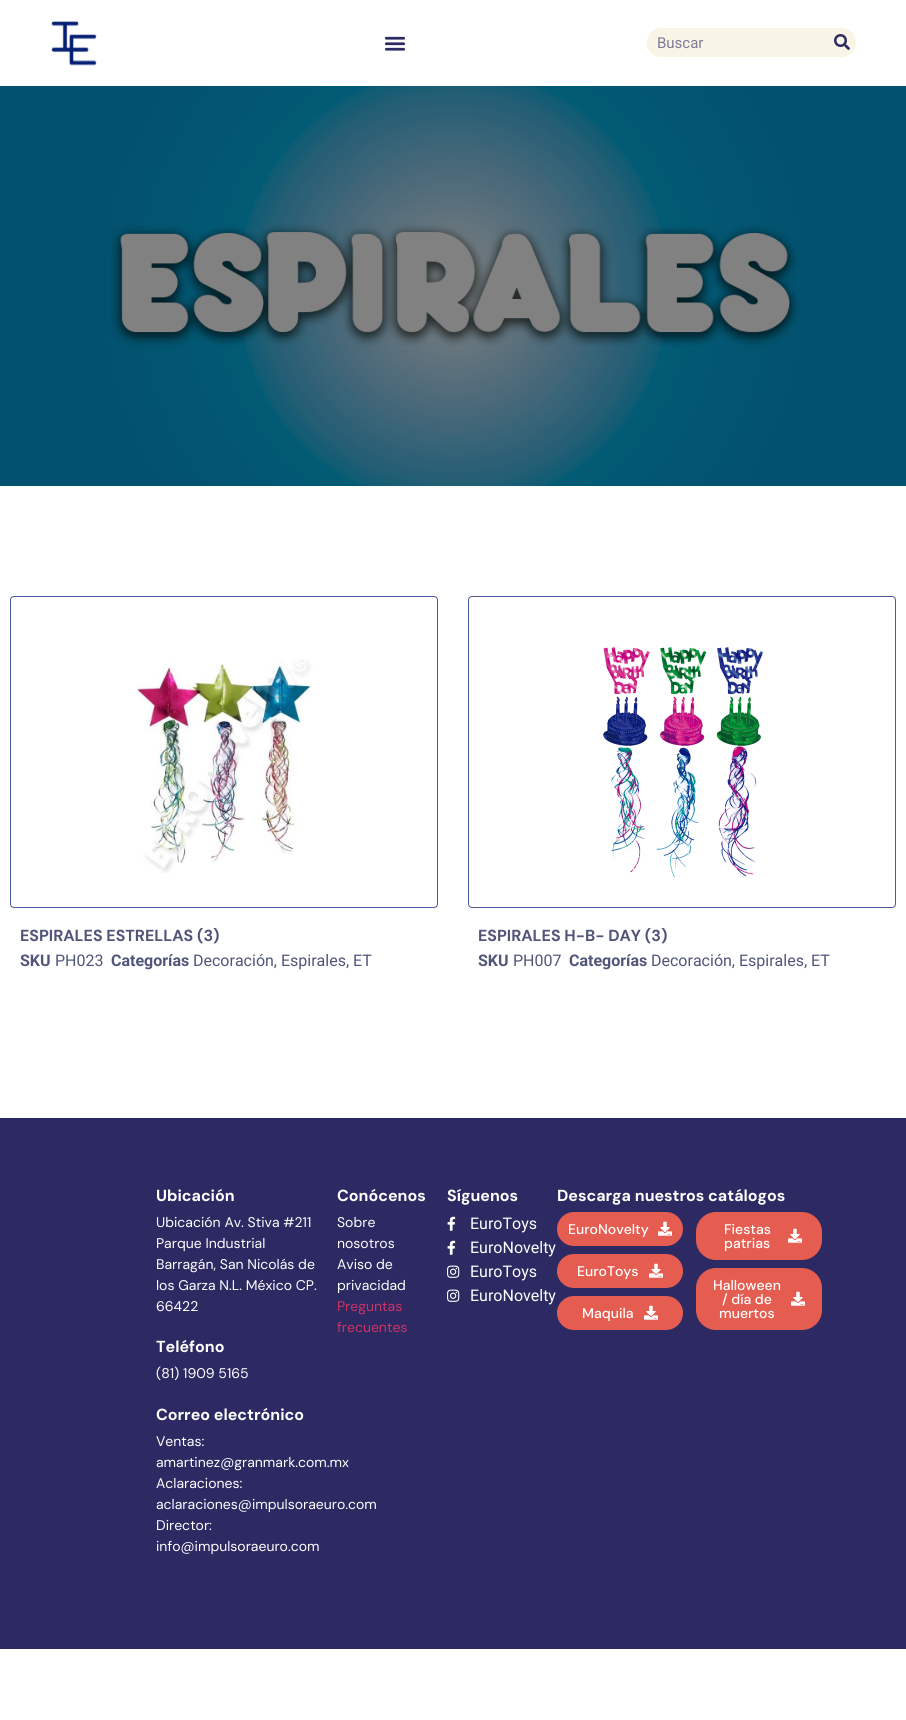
#include <cairo.h>
#include <math.h>
#include <stddef.h>

typedef struct { double x, y; const char *s; } line_t;

static void ink(cairo_t *ctx, unsigned color) {
    cairo_set_source_rgb(ctx, (color >> 16) / 255.0, (color >> 8 & 255) / 255.0, (color & 255) / 255.0);
}

static void round_path(cairo_t *ctx, double x, double y, double w, double h, double r) {
    cairo_new_sub_path(ctx);
    cairo_arc(ctx, x + w - r, y + h - r, r, 0, M_PI / 2);
    cairo_arc(ctx, x + r, y + h - r, r, M_PI / 2, M_PI);
    cairo_arc(ctx, x + r, y + r, r, M_PI, 1.5 * M_PI);
    cairo_arc(ctx, x + w - r, y + r, r, 1.5 * M_PI, 2 * M_PI);
    cairo_close_path(ctx);
}

static void paste(cairo_t *ctx, const char *path, double x, double y, double w, double h) {
    cairo_surface_t *image = cairo_image_surface_create_from_png(path);
    cairo_save(ctx);
    cairo_set_source_surface(ctx, image, x, y);
    cairo_rectangle(ctx, x, y, w, h);
    cairo_fill(ctx);
    cairo_restore(ctx);
    cairo_surface_destroy(image);
}

int main(void) {
    cairo_surface_t *surface = cairo_image_surface_create(CAIRO_FORMAT_RGB24, 906, 1720);
    cairo_t *ctx = cairo_create(surface);
    cairo_font_options_t *options = cairo_font_options_create();
    cairo_font_options_set_hint_metrics(options, CAIRO_HINT_METRICS_OFF);
    cairo_font_options_set_hint_style(options, CAIRO_HINT_STYLE_NONE);
    cairo_set_font_options(ctx, options);
    cairo_set_miter_limit(ctx, 4);
    ink(ctx, 0xFFFFFF);
    cairo_paint(ctx);
    paste(ctx, "media/1.png", 51, 21, 46, 45);
    paste(ctx, "media/2.png", 384, 36, 22, 15);
    ink(ctx, 0xF8F5E6);
    round_path(ctx, 647, 28, 209, 29, 14.5);
    cairo_fill(ctx);
    cairo_new_path(ctx);
    cairo_move_to(ctx, 661.5, 28);
    cairo_line_to(ctx, 824, 28);
    cairo_curve_to(ctx, 825.5, 28, 827, 29.5, 827, 31);
    cairo_line_to(ctx, 827, 54);
    cairo_curve_to(ctx, 827, 55.5, 825.5, 57, 824, 57);
    cairo_line_to(ctx, 661.5, 57);
    cairo_curve_to(ctx, 653.5, 57, 647, 50.5, 647, 42.5);
    cairo_curve_to(ctx, 647, 34.5, 653.5, 28, 661.5, 28);
    cairo_close_path(ctx);
    cairo_fill(ctx);
    cairo_select_font_face(ctx, "Roboto", CAIRO_FONT_SLANT_NORMAL, CAIRO_FONT_WEIGHT_NORMAL);
    cairo_set_font_size(ctx, 15);
    ink(ctx, 0x7E7B97);
    cairo_move_to(ctx, 657, 48);
    cairo_show_text(ctx, "Buscar");
    paste(ctx, "media/3.png", 834, 34, 16, 16);
    paste(ctx, "media/4.png", 0, 86, 906, 400);
    round_path(ctx, 10.5, 596.5, 427, 311, 3.5);
    ink(ctx, 0x4A599B);
    cairo_set_line_width(ctx, 1);
    cairo_stroke(ctx);
    paste(ctx, "media/5.png", 136, 658, 177, 215);
    cairo_select_font_face(ctx, "DM Sans", CAIRO_FONT_SLANT_NORMAL, CAIRO_FONT_WEIGHT_BOLD);
    cairo_set_font_size(ctx, 16);
    ink(ctx, 0x515579);
    cairo_move_to(ctx, 20, 941);
    cairo_show_text(ctx, "ESPIRALES ESTRELLAS (3)");
    cairo_select_font_face(ctx, "Roboto", CAIRO_FONT_SLANT_NORMAL, CAIRO_FONT_WEIGHT_BOLD);
    cairo_move_to(ctx, 20, 966);
    cairo_show_text(ctx, "SKU");
    cairo_select_font_face(ctx, "Roboto", CAIRO_FONT_SLANT_NORMAL, CAIRO_FONT_WEIGHT_NORMAL);
    cairo_move_to(ctx, 55, 966);
    cairo_show_text(ctx, "PH023");
    cairo_select_font_face(ctx, "Roboto", CAIRO_FONT_SLANT_NORMAL, CAIRO_FONT_WEIGHT_BOLD);
    cairo_move_to(ctx, 111, 966);
    cairo_show_text(ctx, "Categorías");
    cairo_select_font_face(ctx, "Roboto", CAIRO_FONT_SLANT_NORMAL, CAIRO_FONT_WEIGHT_NORMAL);
    cairo_move_to(ctx, 193, 966);
    cairo_show_text(ctx, "Decoración, Espirales, ET");
    round_path(ctx, 468.5, 596.5, 427, 311, 3.5);
    ink(ctx, 0x4A599B);
    cairo_stroke(ctx);
    paste(ctx, "media/6.png", 602, 647, 162, 231);
    cairo_select_font_face(ctx, "DM Sans", CAIRO_FONT_SLANT_NORMAL, CAIRO_FONT_WEIGHT_BOLD);
    ink(ctx, 0x515579);
    cairo_move_to(ctx, 478, 941);
    cairo_show_text(ctx, "ESPIRALES H-B- DAY (3)");
    cairo_select_font_face(ctx, "Roboto", CAIRO_FONT_SLANT_NORMAL, CAIRO_FONT_WEIGHT_BOLD);
    cairo_move_to(ctx, 478, 966);
    cairo_show_text(ctx, "SKU");
    cairo_select_font_face(ctx, "Roboto", CAIRO_FONT_SLANT_NORMAL, CAIRO_FONT_WEIGHT_NORMAL);
    cairo_move_to(ctx, 513, 966);
    cairo_show_text(ctx, "PH007");
    cairo_select_font_face(ctx, "Roboto", CAIRO_FONT_SLANT_NORMAL, CAIRO_FONT_WEIGHT_BOLD);
    cairo_move_to(ctx, 569, 966);
    cairo_show_text(ctx, "Categorías");
    cairo_select_font_face(ctx, "Roboto", CAIRO_FONT_SLANT_NORMAL, CAIRO_FONT_WEIGHT_NORMAL);
    cairo_move_to(ctx, 651, 966);
    cairo_show_text(ctx, "Decoración, Espirales, ET");
    ink(ctx, 0x2C2963);
    cairo_rectangle(ctx, 0, 1118, 906, 531);
    cairo_fill(ctx);
    cairo_select_font_face(ctx, "DM Sans", CAIRO_FONT_SLANT_NORMAL, CAIRO_FONT_WEIGHT_BOLD);
    ink(ctx, 0xFFFFFF);
    cairo_move_to(ctx, 156, 1201);
    cairo_show_text(ctx, "Ubicación");
    cairo_select_font_face(ctx, "DM Sans", CAIRO_FONT_SLANT_NORMAL, CAIRO_FONT_WEIGHT_NORMAL);
    cairo_set_font_size(ctx, 14);
    {
        static const line_t items[] = {
            {156, 1227, "Ubicación Av. Stiva #211"},
            {156, 1248, "Parque Industrial"},
            {156, 1269, "Barragán, San Nicolás de"},
            {156, 1290, "los Garza N.L. México CP."},
            {156, 1311, "66422"},
        };
        for (size_t i = 0; i < sizeof items / sizeof *items; i++) {
            cairo_move_to(ctx, items[i].x, items[i].y);
            cairo_show_text(ctx, items[i].s);
        }
    }
    cairo_select_font_face(ctx, "DM Sans", CAIRO_FONT_SLANT_NORMAL, CAIRO_FONT_WEIGHT_BOLD);
    cairo_set_font_size(ctx, 16);
    cairo_move_to(ctx, 156, 1352);
    cairo_show_text(ctx, "Teléfono");
    cairo_select_font_face(ctx, "DM Sans", CAIRO_FONT_SLANT_NORMAL, CAIRO_FONT_WEIGHT_NORMAL);
    cairo_set_font_size(ctx, 14);
    cairo_move_to(ctx, 156, 1378);
    cairo_show_text(ctx, "(81) 1909 5165");
    cairo_select_font_face(ctx, "DM Sans", CAIRO_FONT_SLANT_NORMAL, CAIRO_FONT_WEIGHT_BOLD);
    cairo_set_font_size(ctx, 16);
    cairo_move_to(ctx, 156, 1420);
    cairo_show_text(ctx, "Correo electrónico");
    cairo_select_font_face(ctx, "DM Sans", CAIRO_FONT_SLANT_NORMAL, CAIRO_FONT_WEIGHT_NORMAL);
    cairo_set_font_size(ctx, 14);
    {
        static const line_t items[] = {
            {156, 1446, "Ventas:"},
            {156, 1467, "amartinez@granmark.com.mx"},
            {156, 1488, "Aclaraciones:"},
            {156, 1509, "aclaraciones@impulsoraeuro.com"},
            {156, 1530, "Director:"},
            {156, 1551, "info@impulsoraeuro.com"},
        };
        for (size_t i = 0; i < sizeof items / sizeof *items; i++) {
            cairo_move_to(ctx, items[i].x, items[i].y);
            cairo_show_text(ctx, items[i].s);
        }
    }
    cairo_select_font_face(ctx, "DM Sans", CAIRO_FONT_SLANT_NORMAL, CAIRO_FONT_WEIGHT_BOLD);
    cairo_set_font_size(ctx, 16);
    cairo_move_to(ctx, 337, 1201);
    cairo_show_text(ctx, "Conócenos");
    cairo_select_font_face(ctx, "DM Sans", CAIRO_FONT_SLANT_NORMAL, CAIRO_FONT_WEIGHT_NORMAL);
    cairo_set_font_size(ctx, 14);
    {
        static const line_t items[] = {
            {337, 1227, "Sobre"},
            {337, 1248, "nosotros"},
            {337, 1269, "Aviso de"},
            {337, 1290, "privacidad"},
        };
        for (size_t i = 0; i < sizeof items / sizeof *items; i++) {
            cairo_move_to(ctx, items[i].x, items[i].y);
            cairo_show_text(ctx, items[i].s);
        }
    }
    ink(ctx, 0xCC3366);
    cairo_move_to(ctx, 337, 1311);
    cairo_show_text(ctx, "Preguntas");
    cairo_move_to(ctx, 337, 1332);
    cairo_show_text(ctx, "frecuentes");
    cairo_select_font_face(ctx, "DM Sans", CAIRO_FONT_SLANT_NORMAL, CAIRO_FONT_WEIGHT_BOLD);
    cairo_set_font_size(ctx, 16);
    ink(ctx, 0xFFFFFF);
    cairo_move_to(ctx, 447, 1201);
    cairo_show_text(ctx, "Síguenos");
    paste(ctx, "media/7.png", 447, 1216, 9, 15);
    cairo_select_font_face(ctx, "Roboto", CAIRO_FONT_SLANT_NORMAL, CAIRO_FONT_WEIGHT_NORMAL);
    cairo_move_to(ctx, 470, 1229);
    cairo_show_text(ctx, "EuroToys");
    paste(ctx, "media/7.png", 447, 1240, 9, 15);
    cairo_move_to(ctx, 470, 1253);
    cairo_show_text(ctx, "EuroNovelty");
    paste(ctx, "media/8.png", 447, 1265, 13, 13);
    cairo_move_to(ctx, 470, 1277);
    cairo_show_text(ctx, "EuroToys");
    paste(ctx, "media/8.png", 447, 1289, 13, 13);
    cairo_move_to(ctx, 470, 1301);
    cairo_show_text(ctx, "EuroNovelty");
    cairo_select_font_face(ctx, "DM Sans", CAIRO_FONT_SLANT_NORMAL, CAIRO_FONT_WEIGHT_BOLD);
    cairo_move_to(ctx, 557, 1201);
    cairo_show_text(ctx, "Descarga nuestros catálogos");
    ink(ctx, 0xE55D50);
    round_path(ctx, 557, 1212, 126, 34, 17);
    cairo_fill(ctx);
    cairo_select_font_face(ctx, "DM Sans Medium", CAIRO_FONT_SLANT_NORMAL, CAIRO_FONT_WEIGHT_NORMAL);
    cairo_set_font_size(ctx, 14);
    ink(ctx, 0xFFFFFF);
    cairo_move_to(ctx, 568, 1234);
    cairo_show_text(ctx, "EuroNovelty");
    paste(ctx, "media/9.png", 658, 1221, 14, 15);
    ink(ctx, 0xE55D50);
    round_path(ctx, 557, 1254, 126, 34, 17);
    cairo_fill(ctx);
    ink(ctx, 0xFFFFFF);
    cairo_move_to(ctx, 577, 1276);
    cairo_show_text(ctx, "EuroToys");
    paste(ctx, "media/9.png", 649, 1263, 14, 15);
    ink(ctx, 0xE55D50);
    round_path(ctx, 557, 1296, 126, 34, 17);
    cairo_fill(ctx);
    ink(ctx, 0xFFFFFF);
    cairo_move_to(ctx, 582, 1318);
    cairo_show_text(ctx, "Maquila");
    paste(ctx, "media/9.png", 644, 1305, 14, 15);
    ink(ctx, 0xE55D50);
    round_path(ctx, 696, 1212, 126, 48, 20);
    cairo_fill(ctx);
    ink(ctx, 0xFFFFFF);
    cairo_move_to(ctx, 724, 1234);
    cairo_show_text(ctx, "Fiestas");
    cairo_move_to(ctx, 724, 1248);
    cairo_show_text(ctx, "patrias");
    paste(ctx, "media/9.png", 788, 1228, 14, 15);
    ink(ctx, 0xE55D50);
    round_path(ctx, 696, 1268, 126, 62, 20);
    cairo_fill(ctx);
    ink(ctx, 0xFFFFFF);
    {
        static const line_t items[] = {
            {713, 1290, "Halloween"},
            {722, 1304, "/ día de"},
            {719, 1318, "muertos"},
        };
        for (size_t i = 0; i < sizeof items / sizeof *items; i++) {
            cairo_move_to(ctx, items[i].x, items[i].y);
            cairo_show_text(ctx, items[i].s);
        }
    }
    paste(ctx, "media/9.png", 791, 1291, 14, 15);
    cairo_surface_write_to_png(surface, "image.png");
    cairo_font_options_destroy(options);
    cairo_destroy(ctx);
    cairo_surface_destroy(surface);
    return 0;
}
